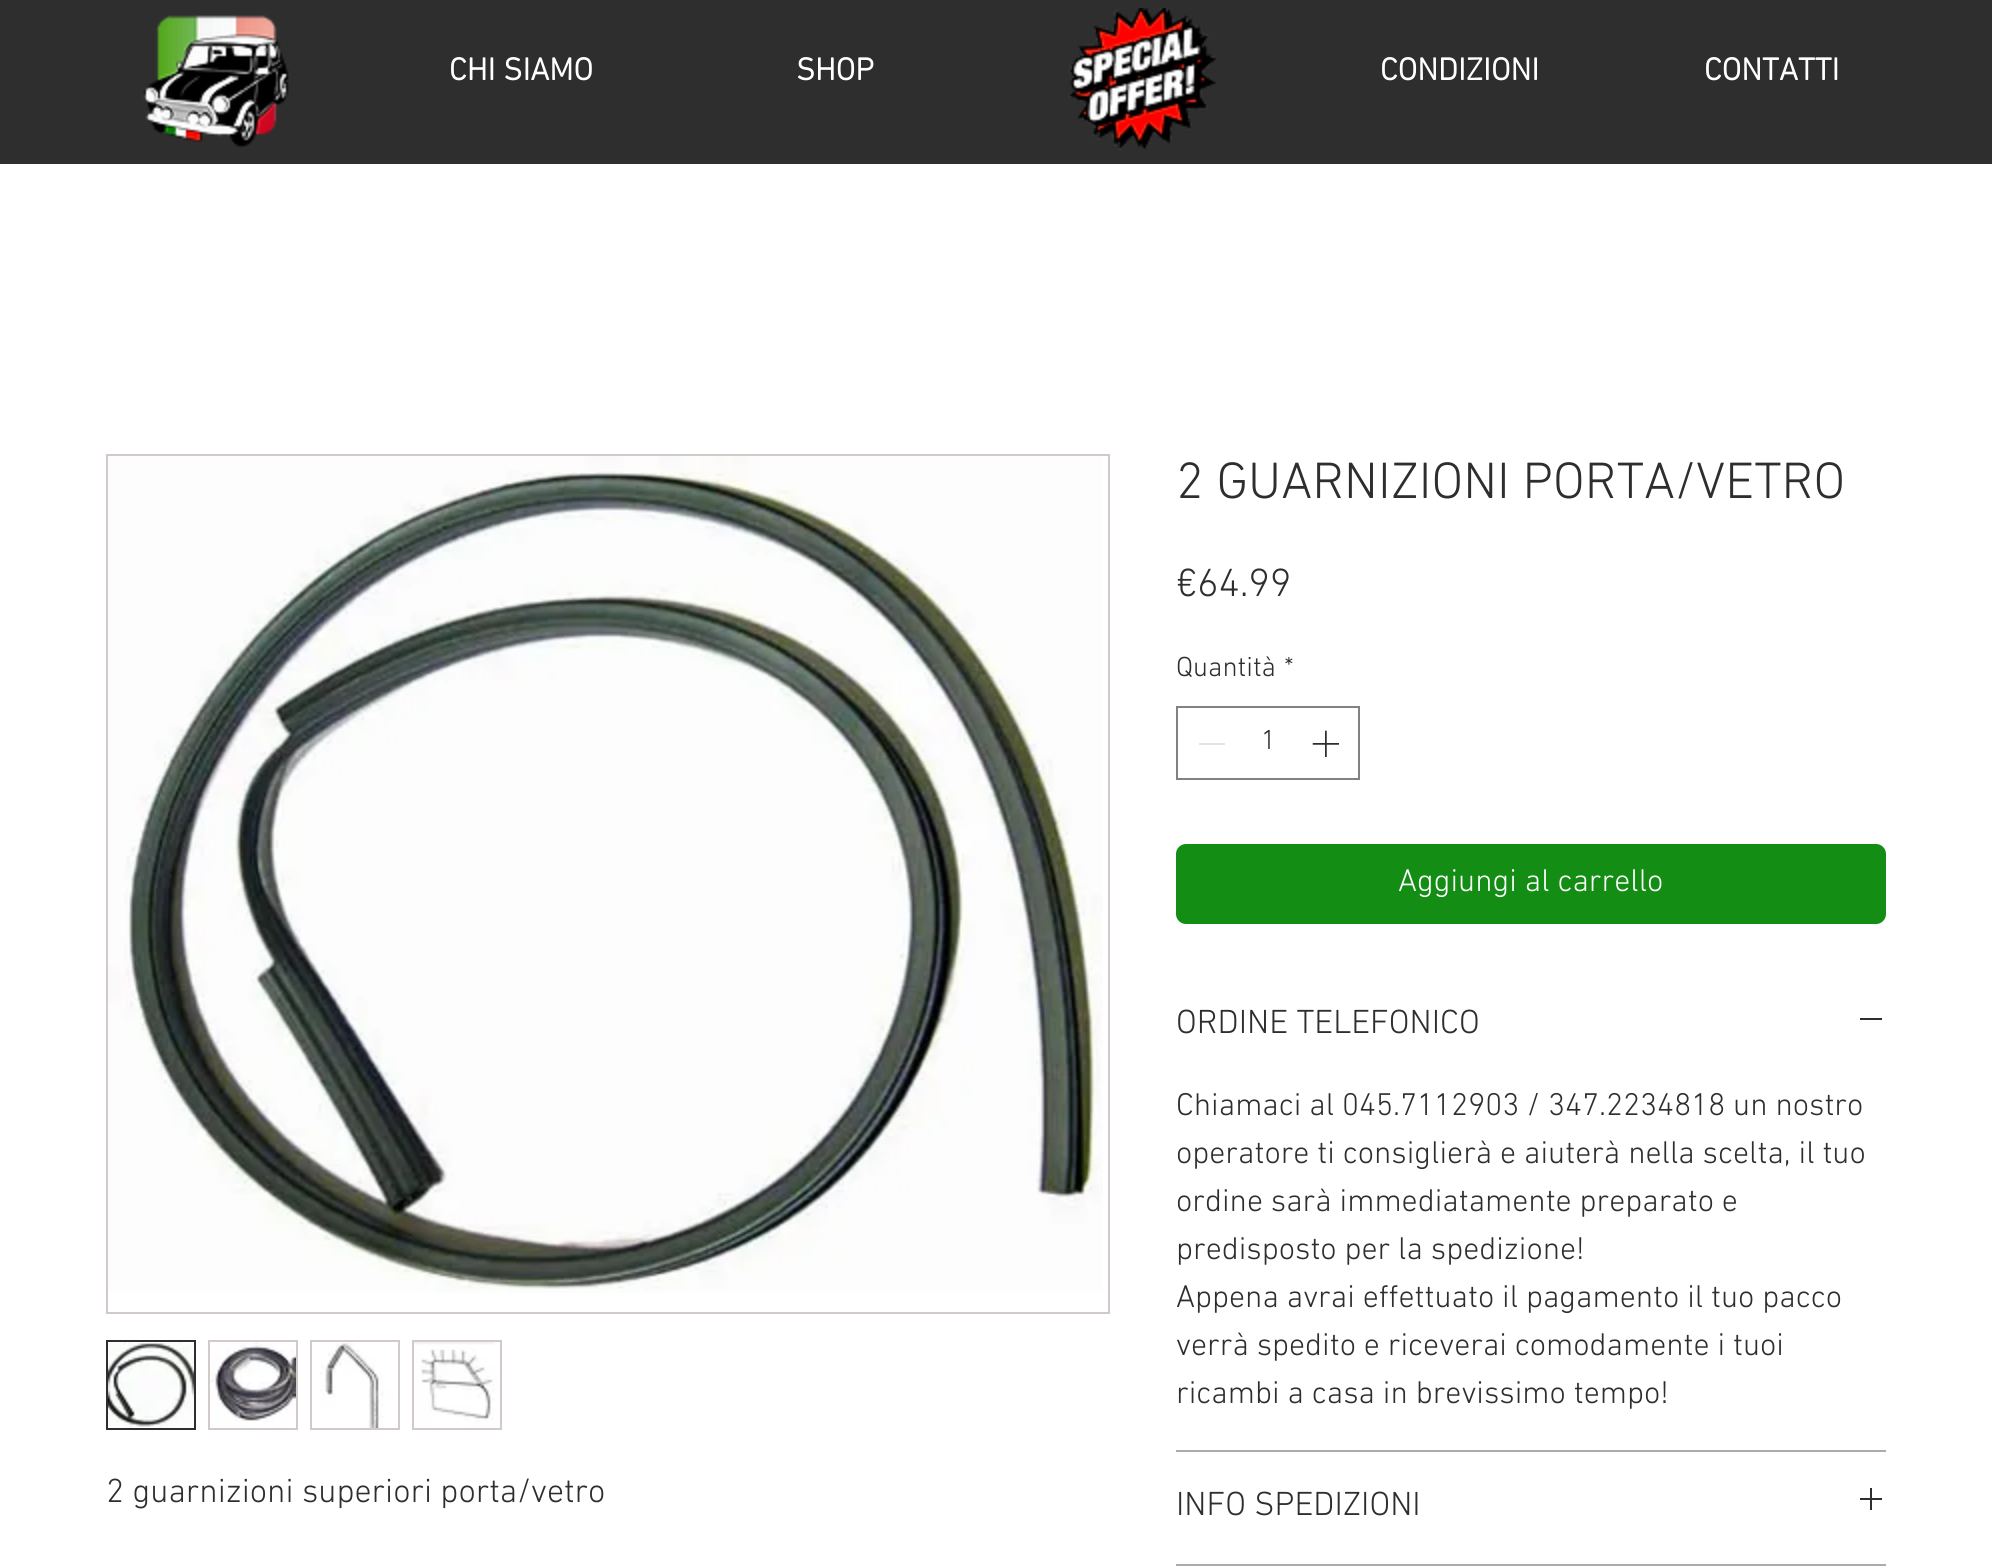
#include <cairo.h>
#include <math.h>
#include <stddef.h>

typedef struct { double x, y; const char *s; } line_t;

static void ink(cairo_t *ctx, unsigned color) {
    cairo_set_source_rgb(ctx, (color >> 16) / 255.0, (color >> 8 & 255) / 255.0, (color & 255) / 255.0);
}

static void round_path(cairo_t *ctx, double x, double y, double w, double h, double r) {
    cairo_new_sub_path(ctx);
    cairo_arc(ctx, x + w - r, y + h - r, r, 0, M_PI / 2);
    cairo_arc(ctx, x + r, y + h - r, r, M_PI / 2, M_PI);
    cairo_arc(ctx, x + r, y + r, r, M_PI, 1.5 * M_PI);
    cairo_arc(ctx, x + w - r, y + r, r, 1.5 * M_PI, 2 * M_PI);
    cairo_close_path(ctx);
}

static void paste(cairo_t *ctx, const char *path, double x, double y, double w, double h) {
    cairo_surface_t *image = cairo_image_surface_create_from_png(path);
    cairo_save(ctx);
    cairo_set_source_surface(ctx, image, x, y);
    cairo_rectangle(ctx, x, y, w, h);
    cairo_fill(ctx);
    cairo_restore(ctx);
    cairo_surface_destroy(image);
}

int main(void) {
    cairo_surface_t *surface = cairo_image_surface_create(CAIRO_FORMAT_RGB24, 1992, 1567);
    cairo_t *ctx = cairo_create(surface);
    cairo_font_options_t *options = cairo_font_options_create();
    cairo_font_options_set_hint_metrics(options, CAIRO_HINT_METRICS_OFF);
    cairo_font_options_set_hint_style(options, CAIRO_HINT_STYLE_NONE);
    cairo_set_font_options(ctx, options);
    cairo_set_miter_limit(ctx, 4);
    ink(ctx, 0xFFFFFF);
    cairo_paint(ctx);
    ink(ctx, 0x2F2E2E);
    cairo_rectangle(ctx, 0, 0, 1992, 164);
    cairo_fill(ctx);
    paste(ctx, "media/1.png", 143, 15, 146, 133);
    paste(ctx, "media/2.png", 1068, 8, 150, 142);
    cairo_select_font_face(ctx, "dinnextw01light", CAIRO_FONT_SLANT_NORMAL, CAIRO_FONT_WEIGHT_BOLD);
    cairo_set_font_size(ctx, 32);
    ink(ctx, 0xFFFFFF);
    {
        static const line_t items[] = {
            {449, 80, "CHI SIAMO"},
            {796, 80, "SHOP"},
            {1380, 80, "CONDIZIONI"},
            {1704, 80, "CONTATTI"},
        };
        for (size_t i = 0; i < sizeof items / sizeof *items; i++) {
            cairo_move_to(ctx, items[i].x, items[i].y);
            cairo_show_text(ctx, items[i].s);
        }
    }
    cairo_rectangle(ctx, 107, 455, 1002, 858);
    ink(ctx, 0xD1CAC9);
    cairo_stroke(ctx);
    paste(ctx, "media/3.png", 108, 456, 995, 837);
    cairo_rectangle(ctx, 107, 1341, 88, 88);
    ink(ctx, 0x2F2E2E);
    cairo_stroke(ctx);
    paste(ctx, "media/4.png", 108, 1342, 86, 86);
    ink(ctx, 0xD1CAC9);
    cairo_rectangle(ctx, 208, 1340, 90, 90);
    cairo_fill(ctx);
    paste(ctx, "media/5.png", 210, 1342, 86, 86);
    cairo_rectangle(ctx, 310, 1340, 90, 90);
    cairo_fill(ctx);
    paste(ctx, "media/6.png", 312, 1342, 86, 86);
    cairo_rectangle(ctx, 412, 1340, 90, 90);
    cairo_fill(ctx);
    paste(ctx, "media/7.png", 414, 1342, 86, 86);
    cairo_select_font_face(ctx, "dinnextw01light Light", CAIRO_FONT_SLANT_NORMAL, CAIRO_FONT_WEIGHT_NORMAL);
    cairo_set_font_size(ctx, 34);
    ink(ctx, 0x2F2E2E);
    cairo_move_to(ctx, 106, 1502);
    cairo_show_text(ctx, "2 guarnizioni superiori porta/vetro");
    cairo_set_font_size(ctx, 52);
    cairo_move_to(ctx, 1176, 498);
    cairo_show_text(ctx, "2 GUARNIZIONI PORTA/VETRO");
    cairo_set_font_size(ctx, 40);
    cairo_move_to(ctx, 1176, 596);
    cairo_show_text(ctx, "€64.99");
    cairo_set_font_size(ctx, 28);
    cairo_move_to(ctx, 1176, 676);
    cairo_show_text(ctx, "Quantità");
    cairo_move_to(ctx, 1284, 676);
    cairo_show_text(ctx, "*");
    cairo_rectangle(ctx, 1177, 707, 182, 72);
    ink(ctx, 0x828282);
    cairo_stroke(ctx);
    ink(ctx, 0xE3E3E3);
    cairo_rectangle(ctx, 1199, 743, 26, 2);
    cairo_fill(ctx);
    ink(ctx, 0x2F2E2E);
    cairo_move_to(ctx, 1261, 749);
    cairo_show_text(ctx, "1");
    paste(ctx, "media/8.png", 1312, 730, 27, 27);
    ink(ctx, 0x138D13);
    round_path(ctx, 1176, 844, 710, 80, 10);
    cairo_fill(ctx);
    cairo_set_font_size(ctx, 32);
    ink(ctx, 0xFFFFFF);
    cairo_move_to(ctx, 1398, 891);
    cairo_show_text(ctx, "Aggiungi al carrello");
    ink(ctx, 0xB0AAA9);
    cairo_rectangle(ctx, 1176, 1450, 710, 2);
    cairo_fill(ctx);
    cairo_set_font_size(ctx, 34);
    ink(ctx, 0x2F2E2E);
    cairo_move_to(ctx, 1176, 1033);
    cairo_show_text(ctx, "ORDINE TELEFONICO");
    cairo_rectangle(ctx, 1860, 1018, 22, 2);
    cairo_fill(ctx);
    cairo_set_font_size(ctx, 32);
    {
        static const line_t items[] = {
            {1176, 1115, "Chiamaci al 045.7112903 / 347.2234818 un nostro"},
            {1176, 1163, "operatore ti consiglierà e aiuterà nella scelta, il tuo"},
            {1176, 1211, "ordine sarà immediatamente preparato e"},
            {1176, 1259, "predisposto per la spedizione!"},
            {1176, 1307, "Appena avrai effettuato il pagamento il tuo pacco"},
            {1176, 1355, "verrà spedito e riceverai comodamente i tuoi"},
            {1176, 1403, "ricambi a casa in brevissimo tempo!"},
        };
        for (size_t i = 0; i < sizeof items / sizeof *items; i++) {
            cairo_move_to(ctx, items[i].x, items[i].y);
            cairo_show_text(ctx, items[i].s);
        }
    }
    ink(ctx, 0xB0AAA9);
    cairo_rectangle(ctx, 1176, 1564, 710, 2);
    cairo_fill(ctx);
    cairo_set_font_size(ctx, 34);
    ink(ctx, 0x2F2E2E);
    cairo_move_to(ctx, 1176, 1515);
    cairo_show_text(ctx, "INFO SPEDIZIONI");
    paste(ctx, "media/9.png", 1860, 1488, 22, 22);
    cairo_surface_write_to_png(surface, "image.png");
    cairo_font_options_destroy(options);
    cairo_destroy(ctx);
    cairo_surface_destroy(surface);
    return 0;
}
